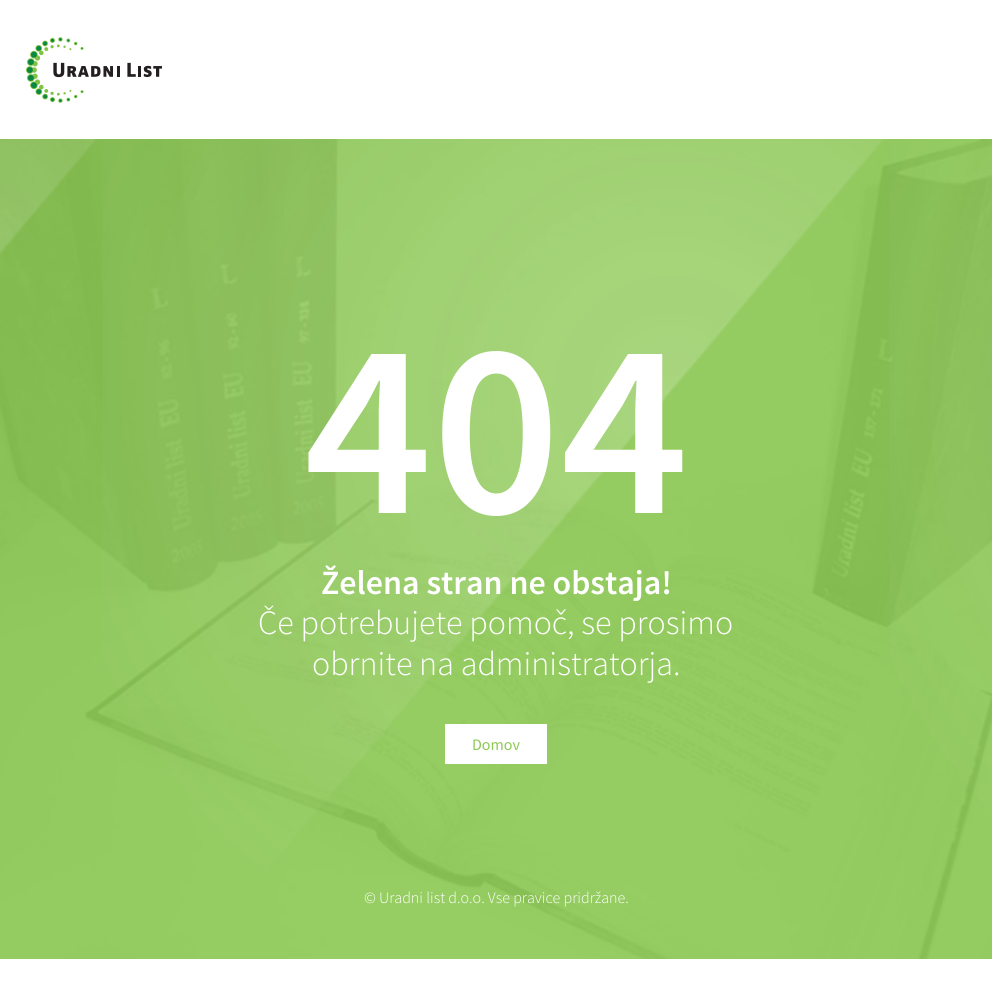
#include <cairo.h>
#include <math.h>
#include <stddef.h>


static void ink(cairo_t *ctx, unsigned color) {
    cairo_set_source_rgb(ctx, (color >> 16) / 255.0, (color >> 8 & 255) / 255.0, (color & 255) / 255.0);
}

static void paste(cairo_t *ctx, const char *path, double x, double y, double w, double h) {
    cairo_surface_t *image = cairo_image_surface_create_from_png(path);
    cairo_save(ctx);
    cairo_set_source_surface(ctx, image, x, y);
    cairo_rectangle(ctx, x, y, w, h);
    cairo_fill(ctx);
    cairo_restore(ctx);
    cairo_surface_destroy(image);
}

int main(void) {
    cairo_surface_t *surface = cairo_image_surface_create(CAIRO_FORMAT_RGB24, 992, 987);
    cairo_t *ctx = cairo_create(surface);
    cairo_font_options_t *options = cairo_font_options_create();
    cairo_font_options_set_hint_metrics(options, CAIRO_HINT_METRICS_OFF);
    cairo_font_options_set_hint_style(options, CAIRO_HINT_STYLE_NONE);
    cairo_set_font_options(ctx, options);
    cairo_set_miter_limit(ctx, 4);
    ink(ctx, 0xFFFFFF);
    cairo_paint(ctx);
    paste(ctx, "media/1.png", 26, 37, 136, 66);
    ink(ctx, 0x8DC955);
    cairo_rectangle(ctx, 0, 139, 992, 820);
    cairo_fill(ctx);
    paste(ctx, "media/2.png", 0, 139, 992, 820);
    cairo_select_font_face(ctx, "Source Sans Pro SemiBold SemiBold", CAIRO_FONT_SLANT_NORMAL, CAIRO_FONT_WEIGHT_NORMAL);
    cairo_set_font_size(ctx, 250);
    ink(ctx, 0xFFFFFF);
    cairo_move_to(ctx, 304, 513);
    cairo_show_text(ctx, "404");
    cairo_set_font_size(ctx, 34);
    cairo_move_to(ctx, 321, 594);
    cairo_show_text(ctx, "Želena stran ne obstaja!");
    cairo_select_font_face(ctx, "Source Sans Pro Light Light", CAIRO_FONT_SLANT_NORMAL, CAIRO_FONT_WEIGHT_NORMAL);
    cairo_move_to(ctx, 258, 634);
    cairo_show_text(ctx, "Če potrebujete pomoč, se prosimo");
    cairo_move_to(ctx, 312, 675);
    cairo_show_text(ctx, "obrnite na administratorja.");
    cairo_rectangle(ctx, 445, 724, 102, 40);
    cairo_fill(ctx);
    cairo_select_font_face(ctx, "Source Sans Pro", CAIRO_FONT_SLANT_NORMAL, CAIRO_FONT_WEIGHT_NORMAL);
    cairo_set_font_size(ctx, 16);
    ink(ctx, 0x8DC955);
    cairo_move_to(ctx, 472, 750);
    cairo_show_text(ctx, "Domov");
    cairo_select_font_face(ctx, "Source Sans Pro Light Light", CAIRO_FONT_SLANT_NORMAL, CAIRO_FONT_WEIGHT_NORMAL);
    ink(ctx, 0xFFFFFF);
    cairo_move_to(ctx, 364, 903);
    cairo_show_text(ctx, "© Uradni list d.o.o. Vse pravice pridržane.");
    cairo_surface_write_to_png(surface, "image.png");
    cairo_font_options_destroy(options);
    cairo_destroy(ctx);
    cairo_surface_destroy(surface);
    return 0;
}
